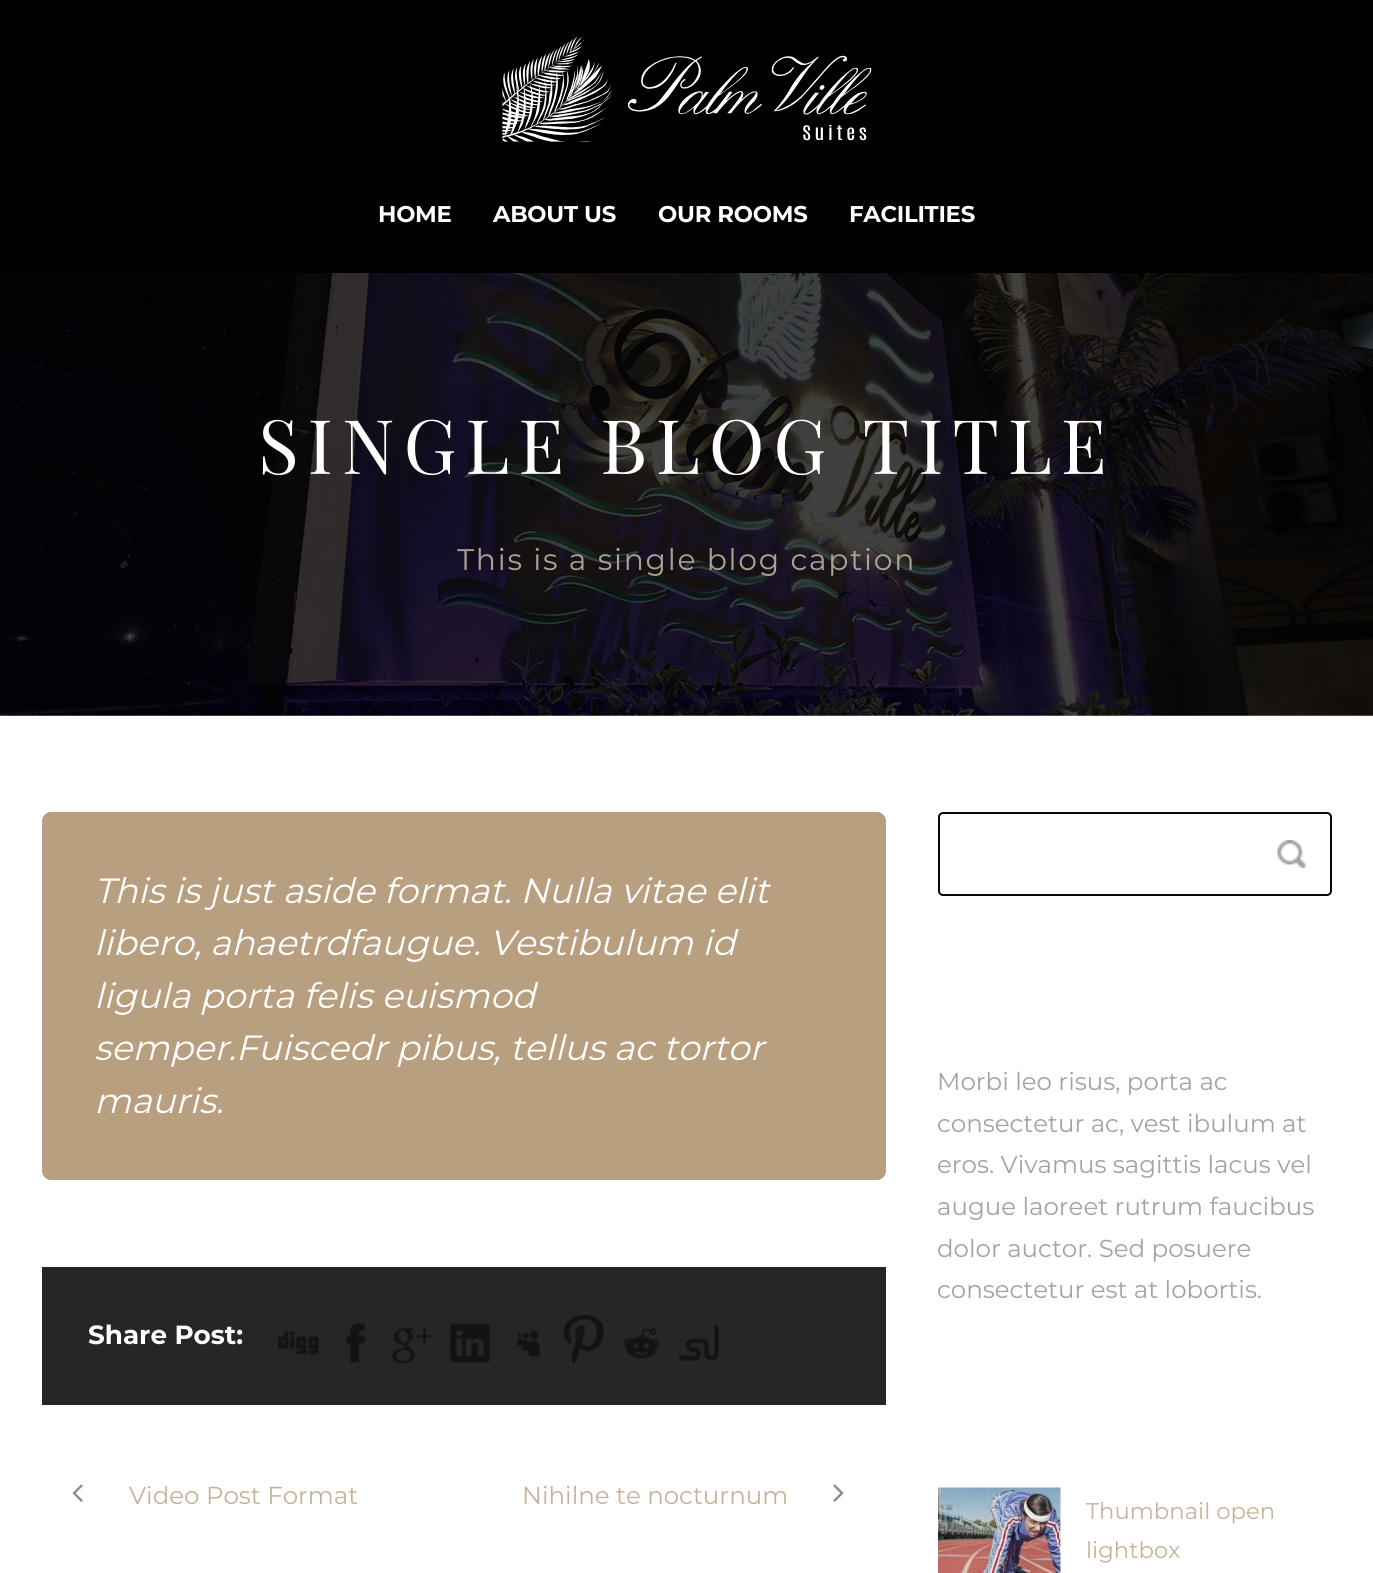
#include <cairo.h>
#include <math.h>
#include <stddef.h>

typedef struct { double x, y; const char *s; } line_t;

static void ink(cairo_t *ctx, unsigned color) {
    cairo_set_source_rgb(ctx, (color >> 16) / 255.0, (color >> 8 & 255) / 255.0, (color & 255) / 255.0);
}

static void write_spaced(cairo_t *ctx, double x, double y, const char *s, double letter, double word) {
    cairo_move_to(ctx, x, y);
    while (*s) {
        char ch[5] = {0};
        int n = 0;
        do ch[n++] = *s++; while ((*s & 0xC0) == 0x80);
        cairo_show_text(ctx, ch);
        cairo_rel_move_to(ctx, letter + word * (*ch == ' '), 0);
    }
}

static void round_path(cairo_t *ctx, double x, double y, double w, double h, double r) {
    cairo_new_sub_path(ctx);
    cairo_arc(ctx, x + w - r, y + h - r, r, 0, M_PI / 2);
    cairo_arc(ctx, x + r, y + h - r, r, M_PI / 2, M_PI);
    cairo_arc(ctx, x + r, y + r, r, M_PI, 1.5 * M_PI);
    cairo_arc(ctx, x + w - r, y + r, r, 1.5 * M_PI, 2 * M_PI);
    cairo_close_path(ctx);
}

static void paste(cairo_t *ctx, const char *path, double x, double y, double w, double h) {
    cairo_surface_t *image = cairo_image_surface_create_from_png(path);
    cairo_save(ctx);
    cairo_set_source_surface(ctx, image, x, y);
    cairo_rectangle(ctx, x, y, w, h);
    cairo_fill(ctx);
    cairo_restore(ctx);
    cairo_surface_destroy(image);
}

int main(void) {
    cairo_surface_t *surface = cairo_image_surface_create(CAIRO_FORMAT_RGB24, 1373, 1573);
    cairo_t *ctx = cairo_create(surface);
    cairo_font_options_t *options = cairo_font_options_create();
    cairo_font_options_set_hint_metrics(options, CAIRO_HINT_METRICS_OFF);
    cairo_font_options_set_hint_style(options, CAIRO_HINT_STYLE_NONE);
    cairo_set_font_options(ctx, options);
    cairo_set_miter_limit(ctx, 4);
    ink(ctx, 0xFFFFFF);
    cairo_paint(ctx);
    ink(ctx, 0x000000);
    cairo_rectangle(ctx, 0, 0, 1373, 273);
    cairo_fill(ctx);
    paste(ctx, "media/1.png", 502, 37, 370, 105);
    cairo_select_font_face(ctx, "Montserrat", CAIRO_FONT_SLANT_NORMAL, CAIRO_FONT_WEIGHT_BOLD);
    cairo_set_font_size(ctx, 22.75);
    ink(ctx, 0xFFFFFF);
    {
        static const line_t items[] = {
            {378, 222, "HOME"},
            {493, 222, "ABOUT US"},
            {658, 222, "OUR ROOMS"},
            {849, 222, "FACILITIES"},
        };
        for (size_t i = 0; i < sizeof items / sizeof *items; i++) {
            write_spaced(ctx, items[i].x, items[i].y, items[i].s, -0.25, 0);
        }
    }
    paste(ctx, "media/2.png", 0, 273, 1373, 443);
    cairo_select_font_face(ctx, "Playfair Display", CAIRO_FONT_SLANT_NORMAL, CAIRO_FONT_WEIGHT_NORMAL);
    cairo_set_font_size(ctx, 75.25);
    write_spaced(ctx, 258, 474, "SINGLE BLOG TITLE", 8.75, 0);
    cairo_select_font_face(ctx, "Montserrat", CAIRO_FONT_SLANT_NORMAL, CAIRO_FONT_WEIGHT_NORMAL);
    cairo_set_font_size(ctx, 29.75);
    ink(ctx, 0xADA191);
    write_spaced(ctx, 457, 570, "This is a single blog caption", 1.75, 0);
    ink(ctx, 0xB89F80);
    round_path(ctx, 42, 812, 844, 368, 9);
    cairo_fill(ctx);
    cairo_select_font_face(ctx, "Montserrat", CAIRO_FONT_SLANT_ITALIC, CAIRO_FONT_WEIGHT_NORMAL);
    cairo_set_font_size(ctx, 35);
    ink(ctx, 0xFFFFFF);
    {
        static const line_t items[] = {
            {94, 903, "This is just aside format. Nulla vitae elit"},
            {94, 955, "libero, ahaetrdfaugue. Vestibulum id"},
            {94, 1008, "ligula porta felis euismod"},
            {94, 1060, "semper.Fuiscedr pibus, tellus ac tortor"},
            {94, 1113, "mauris."},
        };
        for (size_t i = 0; i < sizeof items / sizeof *items; i++) {
            cairo_move_to(ctx, items[i].x, items[i].y);
            cairo_show_text(ctx, items[i].s);
        }
    }
    ink(ctx, 0x262626);
    cairo_rectangle(ctx, 42, 1267, 844, 138);
    cairo_fill(ctx);
    cairo_select_font_face(ctx, "Montserrat", CAIRO_FONT_SLANT_NORMAL, CAIRO_FONT_WEIGHT_BOLD);
    cairo_set_font_size(ctx, 26.25);
    ink(ctx, 0xFFFFFF);
    cairo_move_to(ctx, 88, 1344);
    cairo_show_text(ctx, "Share Post:");
    paste(ctx, "media/3.png", 278, 1330, 41, 25);
    paste(ctx, "media/4.png", 346, 1323, 19, 40);
    paste(ctx, "media/5.png", 392, 1328, 41, 36);
    paste(ctx, "media/6.png", 450, 1323, 40, 40);
    paste(ctx, "media/7.png", 516, 1330, 24, 27);
    paste(ctx, "media/8.png", 563, 1314, 41, 50);
    paste(ctx, "media/9.png", 623, 1328, 36, 31);
    paste(ctx, "media/10.png", 679, 1325, 40, 36);
    paste(ctx, "media/11.png", 72, 1484, 11, 18);
    cairo_select_font_face(ctx, "Montserrat", CAIRO_FONT_SLANT_NORMAL, CAIRO_FONT_WEIGHT_NORMAL);
    cairo_set_font_size(ctx, 24.5);
    ink(ctx, 0xC6B29A);
    cairo_move_to(ctx, 129, 1504);
    cairo_show_text(ctx, "Video Post Format");
    cairo_move_to(ctx, 522, 1504);
    cairo_show_text(ctx, "Nihilne te nocturnum");
    paste(ctx, "media/12.png", 833, 1484, 11, 18);
    round_path(ctx, 939, 813, 392, 82, 4);
    ink(ctx, 0x0A0A0A);
    cairo_stroke(ctx);
    paste(ctx, "media/13.png", 1277, 840, 29, 28);
    ink(ctx, 0xA3A3A3);
    {
        static const line_t items[] = {
            {937, 1090, "Morbi leo risus, porta ac"},
            {937, 1132, "consectetur ac, vest ibulum at"},
            {937, 1173, "eros. Vivamus sagittis lacus vel"},
            {937, 1215, "augue laoreet rutrum faucibus"},
            {937, 1257, "dolor auctor. Sed posuere"},
            {937, 1298, "consectetur est at lobortis."},
        };
        for (size_t i = 0; i < sizeof items / sizeof *items; i++) {
            cairo_move_to(ctx, items[i].x, items[i].y);
            cairo_show_text(ctx, items[i].s);
        }
    }
    paste(ctx, "media/14.png", 938, 1487, 123, 86);
    cairo_set_font_size(ctx, 22.75);
    ink(ctx, 0xC6B29A);
    cairo_move_to(ctx, 1086, 1519);
    cairo_show_text(ctx, "Thumbnail open");
    cairo_move_to(ctx, 1086, 1558);
    cairo_show_text(ctx, "lightbox");
    cairo_surface_write_to_png(surface, "image.png");
    cairo_font_options_destroy(options);
    cairo_destroy(ctx);
    cairo_surface_destroy(surface);
    return 0;
}
